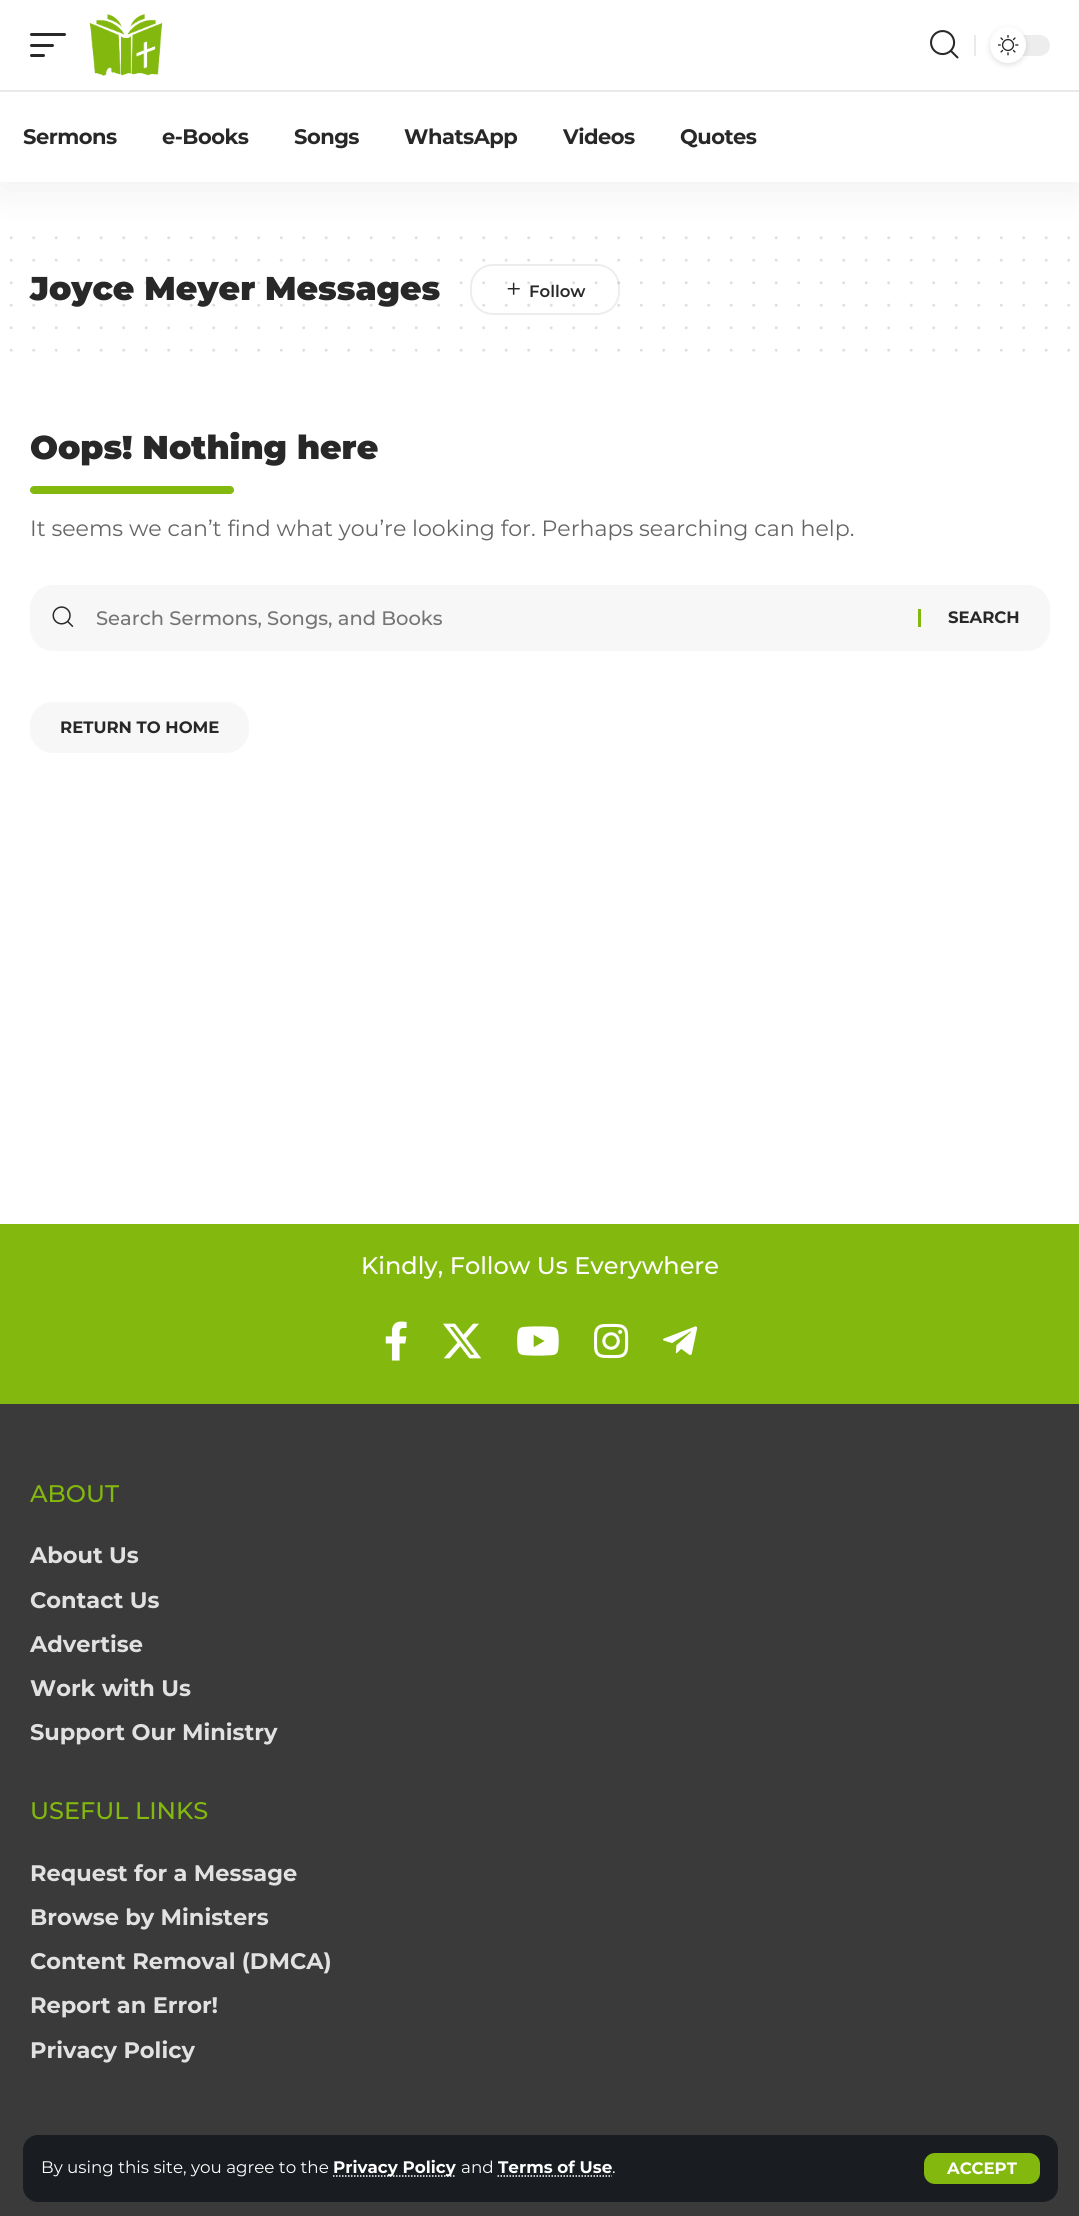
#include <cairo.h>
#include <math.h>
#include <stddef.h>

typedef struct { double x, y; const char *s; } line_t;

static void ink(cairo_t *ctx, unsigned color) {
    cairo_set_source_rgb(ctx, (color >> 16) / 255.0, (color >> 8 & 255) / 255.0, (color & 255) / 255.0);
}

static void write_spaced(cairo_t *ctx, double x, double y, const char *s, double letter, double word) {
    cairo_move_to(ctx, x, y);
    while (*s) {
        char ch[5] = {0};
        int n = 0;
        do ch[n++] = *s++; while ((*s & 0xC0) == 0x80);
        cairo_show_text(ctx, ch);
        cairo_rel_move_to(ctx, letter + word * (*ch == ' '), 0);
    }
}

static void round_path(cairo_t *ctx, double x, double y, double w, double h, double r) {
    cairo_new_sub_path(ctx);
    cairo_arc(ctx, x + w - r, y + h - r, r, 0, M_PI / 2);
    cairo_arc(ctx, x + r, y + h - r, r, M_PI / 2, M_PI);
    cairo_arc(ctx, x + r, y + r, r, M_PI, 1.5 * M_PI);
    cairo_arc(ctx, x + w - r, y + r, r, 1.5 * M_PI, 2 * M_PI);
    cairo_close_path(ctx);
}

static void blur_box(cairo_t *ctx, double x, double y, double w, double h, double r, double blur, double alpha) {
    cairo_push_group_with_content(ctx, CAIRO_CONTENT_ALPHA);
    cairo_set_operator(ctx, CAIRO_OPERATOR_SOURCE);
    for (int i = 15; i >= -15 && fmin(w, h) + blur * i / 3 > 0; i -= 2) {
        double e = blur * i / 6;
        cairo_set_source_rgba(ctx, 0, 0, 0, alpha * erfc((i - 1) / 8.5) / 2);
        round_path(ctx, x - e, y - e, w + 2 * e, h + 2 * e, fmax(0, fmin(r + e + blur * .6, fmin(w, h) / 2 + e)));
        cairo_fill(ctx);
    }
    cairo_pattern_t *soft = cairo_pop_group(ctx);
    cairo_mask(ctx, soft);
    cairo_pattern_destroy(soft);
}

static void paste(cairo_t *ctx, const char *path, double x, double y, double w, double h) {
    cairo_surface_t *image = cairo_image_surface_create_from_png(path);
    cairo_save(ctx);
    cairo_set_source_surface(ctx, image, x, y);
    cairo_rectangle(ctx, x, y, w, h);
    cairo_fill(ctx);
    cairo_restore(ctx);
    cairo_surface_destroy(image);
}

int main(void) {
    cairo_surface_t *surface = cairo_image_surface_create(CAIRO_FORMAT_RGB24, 1079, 2216);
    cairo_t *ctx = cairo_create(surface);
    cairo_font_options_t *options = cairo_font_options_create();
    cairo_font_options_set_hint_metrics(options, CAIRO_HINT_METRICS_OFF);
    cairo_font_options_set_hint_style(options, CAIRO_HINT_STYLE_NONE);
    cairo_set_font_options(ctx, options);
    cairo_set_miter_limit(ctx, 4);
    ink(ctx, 0xFFFFFF);
    cairo_paint(ctx);
    cairo_new_path(ctx);
    cairo_move_to(ctx, 11.2, 237.8);
    cairo_line_to(ctx, 1069.1, 237.8);
    ink(ctx, 0xDFDFDF);
    cairo_set_line_width(ctx, 3);
    cairo_set_line_cap(ctx, CAIRO_LINE_CAP_ROUND);
    cairo_set_dash(ctx, (double[]){0, 22.5}, 2, 0);
    cairo_stroke(ctx);
    ink(ctx, 0x000000);
    blur_box(ctx, 0, 6, 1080, 182, 0, 22.5, 0.07);
    ink(ctx, 0xFFFFFF);
    cairo_rectangle(ctx, 0, 0, 1079, 182);
    cairo_fill(ctx);
    ink(ctx, 0x282828);
    round_path(ctx, 30, 33, 36, 3, 1.5);
    cairo_fill(ctx);
    round_path(ctx, 30, 44, 24, 3, 1.5);
    cairo_fill(ctx);
    round_path(ctx, 30, 54, 15, 3, 1.5);
    cairo_fill(ctx);
    paste(ctx, "media/1.png", 89, 14, 74, 62);
    paste(ctx, "media/2.png", 930, 30, 29, 29);
    ink(ctx, 0xEAEAEA);
    cairo_rectangle(ctx, 974, 35, 2, 21);
    cairo_fill(ctx);
    ink(ctx, 0xEDEDED);
    round_path(ctx, 990, 35, 60, 21, 10.5);
    cairo_fill(ctx);
    ink(ctx, 0x000000);
    blur_box(ctx, 990, 29, 36, 36, 18, 3, 0.12);
    ink(ctx, 0xFFFFFF);
    cairo_arc(ctx, 1008, 45, 18, 0, 2 * M_PI);
    cairo_fill(ctx);
    paste(ctx, "media/3.png", 998, 35, 21, 21);
    ink(ctx, 0xEAEAEA);
    cairo_rectangle(ctx, 0, 90, 1079, 2);
    cairo_fill(ctx);
    cairo_select_font_face(ctx, "Montserrat", CAIRO_FONT_SLANT_NORMAL, CAIRO_FONT_WEIGHT_BOLD);
    cairo_set_font_size(ctx, 21);
    ink(ctx, 0x282828);
    {
        static const line_t items[] = {
            {23, 144, "Sermons"},
            {162, 144, "e-Books"},
            {294, 144, "Songs"},
            {404, 144, "WhatsApp"},
            {563, 144, "Videos"},
            {680, 144, "Quotes"},
        };
        for (size_t i = 0; i < sizeof items / sizeof *items; i++) {
            write_spaced(ctx, items[i].x, items[i].y, items[i].s, -0.5, 0);
        }
    }
    ink(ctx, 0x3A3A3A);
    cairo_rectangle(ctx, 0, 1404, 1079, 812);
    cairo_fill(ctx);
    ink(ctx, 0x191C20);
    round_path(ctx, 23, 2135, 1035, 67, 15);
    cairo_fill(ctx);
    cairo_select_font_face(ctx, "Montserrat", CAIRO_FONT_SLANT_NORMAL, CAIRO_FONT_WEIGHT_NORMAL);
    cairo_set_font_size(ctx, 16.75);
    ink(ctx, 0xFFFFFF);
    cairo_move_to(ctx, 41, 2173);
    cairo_show_text(ctx, "By using this site, you agree to the");
    cairo_new_path(ctx);
    cairo_move_to(ctx, 333, 2176);
    cairo_line_to(ctx, 456, 2176);
    cairo_set_line_width(ctx, 1.5);
    cairo_set_line_cap(ctx, CAIRO_LINE_CAP_BUTT);
    cairo_set_dash(ctx, (double[]){1.5, 1.5}, 2, 0);
    cairo_stroke(ctx);
    cairo_select_font_face(ctx, "Montserrat", CAIRO_FONT_SLANT_NORMAL, CAIRO_FONT_WEIGHT_BOLD);
    cairo_move_to(ctx, 333, 2173);
    cairo_show_text(ctx, "Privacy Policy");
    cairo_select_font_face(ctx, "Montserrat", CAIRO_FONT_SLANT_NORMAL, CAIRO_FONT_WEIGHT_NORMAL);
    cairo_move_to(ctx, 461, 2173);
    cairo_show_text(ctx, "and");
    cairo_select_font_face(ctx, "Montserrat", CAIRO_FONT_SLANT_NORMAL, CAIRO_FONT_WEIGHT_BOLD);
    cairo_move_to(ctx, 498, 2173);
    cairo_show_text(ctx, "Terms of Use");
    cairo_new_path(ctx);
    cairo_move_to(ctx, 497.5, 2176);
    cairo_line_to(ctx, 612, 2176);
    cairo_stroke(ctx);
    cairo_select_font_face(ctx, "Montserrat", CAIRO_FONT_SLANT_NORMAL, CAIRO_FONT_WEIGHT_NORMAL);
    cairo_move_to(ctx, 612, 2173);
    cairo_show_text(ctx, ".");
    ink(ctx, 0x83B80E);
    round_path(ctx, 924, 2153, 116, 31, 11);
    cairo_fill(ctx);
    cairo_select_font_face(ctx, "Montserrat", CAIRO_FONT_SLANT_NORMAL, CAIRO_FONT_WEIGHT_BOLD);
    cairo_set_font_size(ctx, 16.5);
    ink(ctx, 0xFFFFFF);
    cairo_move_to(ctx, 947, 2174);
    cairo_show_text(ctx, "ACCEPT");
    cairo_new_path(ctx);
    cairo_move_to(ctx, 11.2, 260.2);
    cairo_line_to(ctx, 1069.1, 260.2);
    ink(ctx, 0xDFDFDF);
    cairo_set_line_width(ctx, 3);
    cairo_set_line_cap(ctx, CAIRO_LINE_CAP_ROUND);
    cairo_set_dash(ctx, (double[]){0, 22.5}, 2, 0);
    cairo_stroke(ctx);
    cairo_new_path(ctx);
    cairo_move_to(ctx, 11.2, 282.8);
    cairo_line_to(ctx, 1069.1, 282.8);
    cairo_stroke(ctx);
    cairo_new_path(ctx);
    cairo_move_to(ctx, 11.2, 305.2);
    cairo_line_to(ctx, 1069.1, 305.2);
    cairo_stroke(ctx);
    cairo_new_path(ctx);
    cairo_move_to(ctx, 11.2, 327.8);
    cairo_line_to(ctx, 1069.1, 327.8);
    cairo_stroke(ctx);
    cairo_new_path(ctx);
    cairo_move_to(ctx, 11.2, 350.2);
    cairo_line_to(ctx, 1069.1, 350.2);
    cairo_stroke(ctx);
    cairo_select_font_face(ctx, "Montserrat Black", CAIRO_FONT_SLANT_NORMAL, CAIRO_FONT_WEIGHT_NORMAL);
    cairo_set_font_size(ctx, 33);
    ink(ctx, 0x282828);
    cairo_move_to(ctx, 30, 300);
    cairo_show_text(ctx, "Joyce Meyer Messages");
    round_path(ctx, 471, 265, 148, 49, 22);
    cairo_set_source_rgba(ctx, 0.533, 0.533, 0.533, 0.15);
    cairo_set_line_width(ctx, 2);
    cairo_set_line_cap(ctx, CAIRO_LINE_CAP_BUTT);
    cairo_set_dash(ctx, NULL, 0, 0);
    cairo_stroke(ctx);
    paste(ctx, "media/4.png", 507, 282, 13, 13);
    cairo_select_font_face(ctx, "Montserrat SemiBold", CAIRO_FONT_SLANT_NORMAL, CAIRO_FONT_WEIGHT_NORMAL);
    cairo_set_font_size(ctx, 16.5);
    ink(ctx, 0x282828);
    cairo_move_to(ctx, 529, 297);
    cairo_show_text(ctx, "Follow");
    cairo_select_font_face(ctx, "Montserrat Black", CAIRO_FONT_SLANT_NORMAL, CAIRO_FONT_WEIGHT_NORMAL);
    cairo_set_font_size(ctx, 33);
    cairo_move_to(ctx, 30, 459);
    cairo_show_text(ctx, "Oops! Nothing here");
    ink(ctx, 0x83B80E);
    round_path(ctx, 30, 486, 204, 8, 4);
    cairo_fill(ctx);
    cairo_select_font_face(ctx, "Montserrat", CAIRO_FONT_SLANT_NORMAL, CAIRO_FONT_WEIGHT_NORMAL);
    cairo_set_font_size(ctx, 22.1);
    ink(ctx, 0x666666);
    cairo_move_to(ctx, 30, 536);
    cairo_show_text(ctx, "It seems we can’t find what you’re looking for. Perhaps searching can help.");
    ink(ctx, 0xF7F7F7);
    round_path(ctx, 30, 585, 1020, 66, 23);
    cairo_fill(ctx);
    paste(ctx, "media/5.png", 52, 606, 22, 21);
    cairo_select_font_face(ctx, "Montserrat Medium", CAIRO_FONT_SLANT_NORMAL, CAIRO_FONT_WEIGHT_NORMAL);
    cairo_set_font_size(ctx, 19.5);
    ink(ctx, 0x757575);
    cairo_move_to(ctx, 96, 625);
    cairo_show_text(ctx, "Search Sermons, Songs, and Books");
    ink(ctx, 0x83B80E);
    cairo_rectangle(ctx, 918, 609, 3, 18);
    cairo_fill(ctx);
    cairo_select_font_face(ctx, "Montserrat", CAIRO_FONT_SLANT_NORMAL, CAIRO_FONT_WEIGHT_BOLD);
    cairo_set_font_size(ctx, 16.5);
    ink(ctx, 0x282828);
    cairo_move_to(ctx, 948, 623);
    cairo_show_text(ctx, "SEARCH");
    ink(ctx, 0xF7F7F7);
    round_path(ctx, 30, 702, 219, 51, 23);
    cairo_fill(ctx);
    ink(ctx, 0x282828);
    cairo_move_to(ctx, 60, 733);
    cairo_show_text(ctx, "RETURN TO HOME");
    ink(ctx, 0x83B80E);
    cairo_rectangle(ctx, 0, 1224, 1079, 180);
    cairo_fill(ctx);
    cairo_select_font_face(ctx, "Montserrat Medium", CAIRO_FONT_SLANT_NORMAL, CAIRO_FONT_WEIGHT_NORMAL);
    cairo_set_font_size(ctx, 24);
    ink(ctx, 0xFFFFFF);
    cairo_move_to(ctx, 361, 1274);
    cairo_show_text(ctx, "Kindly, Follow Us Everywhere");
    paste(ctx, "media/6.png", 385, 1321, 22, 40);
    paste(ctx, "media/7.png", 443, 1323, 39, 36);
    paste(ctx, "media/8.png", 517, 1326, 42, 30);
    paste(ctx, "media/9.png", 594, 1323, 35, 36);
    paste(ctx, "media/10.png", 663, 1326, 35, 29);
    ink(ctx, 0x83B80E);
    cairo_move_to(ctx, 30, 1502);
    cairo_show_text(ctx, "ABOUT");
    cairo_select_font_face(ctx, "Montserrat", CAIRO_FONT_SLANT_NORMAL, CAIRO_FONT_WEIGHT_BOLD);
    cairo_set_font_size(ctx, 22.5);
    ink(ctx, 0xE1E1E1);
    {
        static const line_t items[] = {
            {30, 1563, "About Us"},
            {30, 1608, "Contact Us"},
            {30, 1652, "Advertise"},
            {30, 1696, "Work with Us"},
            {30, 1740, "Support Our Ministry"},
        };
        for (size_t i = 0; i < sizeof items / sizeof *items; i++) {
            cairo_move_to(ctx, items[i].x, items[i].y);
            cairo_show_text(ctx, items[i].s);
        }
    }
    cairo_select_font_face(ctx, "Montserrat Medium", CAIRO_FONT_SLANT_NORMAL, CAIRO_FONT_WEIGHT_NORMAL);
    cairo_set_font_size(ctx, 24);
    ink(ctx, 0x83B80E);
    cairo_move_to(ctx, 30, 1819);
    cairo_show_text(ctx, "USEFUL LINKS");
    cairo_select_font_face(ctx, "Montserrat", CAIRO_FONT_SLANT_NORMAL, CAIRO_FONT_WEIGHT_BOLD);
    cairo_set_font_size(ctx, 22.5);
    ink(ctx, 0xE1E1E1);
    {
        static const line_t items[] = {
            {30, 1881, "Request for a Message"},
            {30, 1925, "Browse by Ministers"},
            {30, 1969, "Content Removal (DMCA)"},
            {30, 2013, "Report an Error!"},
            {30, 2058, "Privacy Policy"},
        };
        for (size_t i = 0; i < sizeof items / sizeof *items; i++) {
            cairo_move_to(ctx, items[i].x, items[i].y);
            cairo_show_text(ctx, items[i].s);
        }
    }
    cairo_surface_write_to_png(surface, "image.png");
    cairo_font_options_destroy(options);
    cairo_destroy(ctx);
    cairo_surface_destroy(surface);
    return 0;
}
